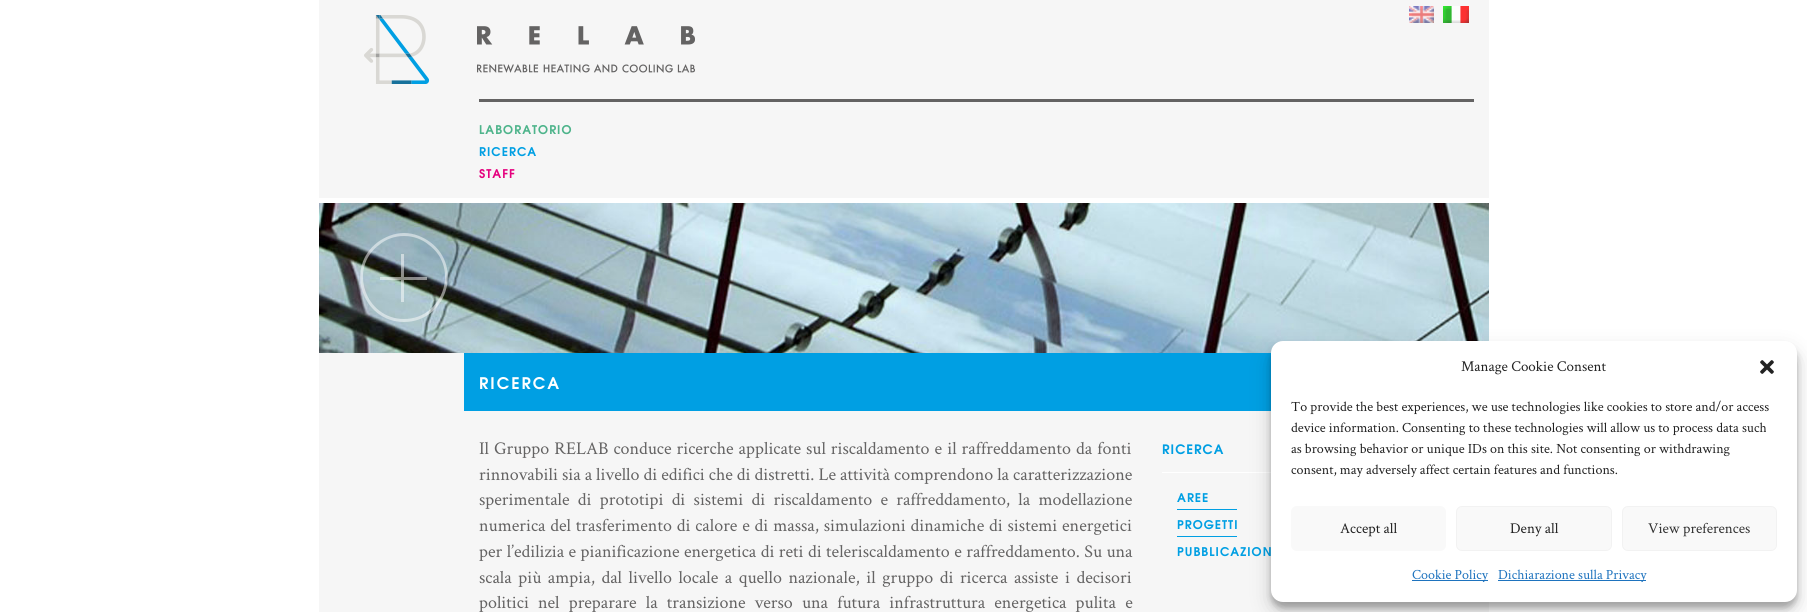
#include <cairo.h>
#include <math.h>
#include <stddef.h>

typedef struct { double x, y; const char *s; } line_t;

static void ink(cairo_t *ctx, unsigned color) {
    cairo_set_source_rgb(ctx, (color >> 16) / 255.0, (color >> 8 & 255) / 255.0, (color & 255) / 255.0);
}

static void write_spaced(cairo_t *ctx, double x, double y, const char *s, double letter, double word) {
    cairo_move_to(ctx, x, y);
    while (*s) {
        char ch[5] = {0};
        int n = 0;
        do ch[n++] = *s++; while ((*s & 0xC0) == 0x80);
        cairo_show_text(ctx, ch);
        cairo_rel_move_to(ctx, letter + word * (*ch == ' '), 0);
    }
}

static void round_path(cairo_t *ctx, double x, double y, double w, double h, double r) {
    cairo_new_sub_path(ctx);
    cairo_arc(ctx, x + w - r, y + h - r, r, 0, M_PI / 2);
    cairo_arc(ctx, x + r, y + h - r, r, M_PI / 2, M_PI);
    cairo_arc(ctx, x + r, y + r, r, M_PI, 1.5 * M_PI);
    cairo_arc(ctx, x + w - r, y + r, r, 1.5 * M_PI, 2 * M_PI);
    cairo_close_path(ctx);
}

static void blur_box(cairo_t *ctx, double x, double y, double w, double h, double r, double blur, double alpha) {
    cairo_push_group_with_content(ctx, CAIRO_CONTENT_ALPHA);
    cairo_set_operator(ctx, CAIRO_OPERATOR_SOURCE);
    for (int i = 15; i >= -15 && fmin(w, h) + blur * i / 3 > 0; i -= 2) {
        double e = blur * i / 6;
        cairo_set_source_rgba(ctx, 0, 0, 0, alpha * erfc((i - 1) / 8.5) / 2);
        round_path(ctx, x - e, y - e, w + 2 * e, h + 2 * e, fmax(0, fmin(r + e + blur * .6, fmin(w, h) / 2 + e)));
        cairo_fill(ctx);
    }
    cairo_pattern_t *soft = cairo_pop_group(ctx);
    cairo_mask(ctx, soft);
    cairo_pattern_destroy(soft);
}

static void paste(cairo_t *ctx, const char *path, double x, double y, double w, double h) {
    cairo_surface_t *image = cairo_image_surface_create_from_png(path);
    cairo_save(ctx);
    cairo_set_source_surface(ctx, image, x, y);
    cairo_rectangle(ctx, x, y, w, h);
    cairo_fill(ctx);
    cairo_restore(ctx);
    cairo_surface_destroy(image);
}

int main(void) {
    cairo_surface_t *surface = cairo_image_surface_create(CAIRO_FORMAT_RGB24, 1807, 612);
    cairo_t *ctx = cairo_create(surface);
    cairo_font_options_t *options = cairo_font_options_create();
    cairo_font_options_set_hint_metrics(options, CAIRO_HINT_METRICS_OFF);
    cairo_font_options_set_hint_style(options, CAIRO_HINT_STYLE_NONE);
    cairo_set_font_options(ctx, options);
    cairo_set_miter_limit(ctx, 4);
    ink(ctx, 0xFFFFFF);
    cairo_paint(ctx);
    ink(ctx, 0xF6F6F6);
    cairo_rectangle(ctx, 319, 0, 1170, 198);
    cairo_fill(ctx);
    paste(ctx, "media/1.png", 364, 15, 331, 69);
    paste(ctx, "media/2.png", 1409, 6, 25, 17);
    paste(ctx, "media/3.png", 1443, 6, 26, 17);
    ink(ctx, 0x646363);
    cairo_rectangle(ctx, 479, 99, 995, 3);
    cairo_fill(ctx);
    cairo_select_font_face(ctx, "TeX Gyre Adventor", CAIRO_FONT_SLANT_NORMAL, CAIRO_FONT_WEIGHT_BOLD);
    cairo_set_font_size(ctx, 12);
    ink(ctx, 0x4EB48B);
    write_spaced(ctx, 479, 134, "LABORATORIO", 1, 0);
    ink(ctx, 0x009FE3);
    write_spaced(ctx, 479, 156, "RICERCA", 1, 0);
    ink(ctx, 0xE5007E);
    write_spaced(ctx, 479, 178, "STAFF", 1, 0);
    paste(ctx, "media/4.png", 319, 203, 1170, 150);
    cairo_set_source_rgba(ctx, 1, 1, 1, 0.5);
    cairo_new_path(ctx);
    cairo_move_to(ctx, 404, 322);
    cairo_curve_to(ctx, 362, 322, 344, 267, 378, 242);
    cairo_curve_to(ctx, 385, 237, 394, 233, 404, 233);
    cairo_curve_to(ctx, 414, 233, 423, 237, 430, 242);
    cairo_curve_to(ctx, 464, 267, 446, 322, 404, 322);
    cairo_close_path(ctx);
    cairo_move_to(ctx, 404, 236);
    cairo_curve_to(ctx, 395, 236, 386, 239, 379, 245);
    cairo_curve_to(ctx, 348, 268, 365, 319, 404, 319);
    cairo_curve_to(ctx, 443, 319, 460, 268, 429, 245);
    cairo_curve_to(ctx, 422, 239, 413, 236, 404, 236);
    cairo_close_path(ctx);
    cairo_move_to(ctx, 401, 254);
    cairo_line_to(ctx, 404, 254);
    cairo_line_to(ctx, 404, 302);
    cairo_line_to(ctx, 401, 302);
    cairo_close_path(ctx);
    cairo_move_to(ctx, 380, 277);
    cairo_line_to(ctx, 427, 277);
    cairo_line_to(ctx, 427, 280);
    cairo_line_to(ctx, 380, 280);
    cairo_close_path(ctx);
    cairo_fill(ctx);
    ink(ctx, 0xF6F6F6);
    cairo_rectangle(ctx, 319, 353, 952, 73);
    cairo_fill(ctx);
    ink(ctx, 0x009FE3);
    cairo_rectangle(ctx, 464, 353, 807, 58);
    cairo_fill(ctx);
    cairo_set_font_size(ctx, 16);
    ink(ctx, 0xFFFFFF);
    write_spaced(ctx, 479, 389, "RICERCA", 2, 0);
    ink(ctx, 0xF6F6F6);
    cairo_rectangle(ctx, 319, 426, 1170, 186);
    cairo_fill(ctx);
    cairo_select_font_face(ctx, "Crimson Text", CAIRO_FONT_SLANT_NORMAL, CAIRO_FONT_WEIGHT_NORMAL);
    cairo_set_font_size(ctx, 18);
    ink(ctx, 0x646363);
    write_spaced(ctx, 479, 454, "Il Gruppo RELAB conduce ricerche applicate sul riscaldamento e il raffreddamento da fonti", 0, 1);
    cairo_move_to(ctx, 479, 480);
    cairo_show_text(ctx, "rinnovabili sia a livello di edifici che di distretti. Le attività comprendono la caratterizzazione");
    write_spaced(ctx, 479, 505, "sperimentale di prototipi di sistemi di riscaldamento e raffreddamento, la modellazione", 0, 4.25);
    write_spaced(ctx, 479, 531, "numerica del trasferimento di calore e di massa, simulazioni dinamiche di sistemi energetici", 0, 0.8);
    write_spaced(ctx, 479, 557, "per l’edilizia e pianificazione energetica di reti di teleriscaldamento e raffreddamento. Su una", 0, 0.4);
    write_spaced(ctx, 479, 583, "scala più ampia, dal livello locale a quello nazionale, il gruppo di ricerca assiste i decisori", 0, 2.5);
    write_spaced(ctx, 479, 608, "politici nel preparare la transizione verso una futura infrastruttura energetica pulita e", 0, 5.1);
    ink(ctx, 0xFFFFFF);
    cairo_rectangle(ctx, 1162, 472, 109, 1);
    cairo_fill(ctx);
    cairo_select_font_face(ctx, "TeX Gyre Adventor", CAIRO_FONT_SLANT_NORMAL, CAIRO_FONT_WEIGHT_BOLD);
    cairo_set_font_size(ctx, 13);
    ink(ctx, 0x009FE3);
    write_spaced(ctx, 1162, 454, "RICERCA", 1, 0);
    cairo_set_font_size(ctx, 12);
    write_spaced(ctx, 1177, 502, "AREE", 1, 0);
    cairo_rectangle(ctx, 1177, 509, 60, 1);
    cairo_fill(ctx);
    write_spaced(ctx, 1177, 529, "PROGETTI", 1, 0);
    cairo_rectangle(ctx, 1177, 536, 60, 1);
    cairo_fill(ctx);
    write_spaced(ctx, 1177, 556, "PUBBLICAZION", 1, 0);
    ink(ctx, 0x000000);
    blur_box(ctx, 1271, 347, 526, 261, 12, 3, 0.23);
    blur_box(ctx, 1271, 351, 526, 261, 12, 10, 0.19);
    ink(ctx, 0xFFFFFF);
    round_path(ctx, 1271, 341, 526, 261, 12);
    cairo_fill(ctx);
    cairo_select_font_face(ctx, "Crimson Text", CAIRO_FONT_SLANT_NORMAL, CAIRO_FONT_WEIGHT_NORMAL);
    cairo_set_font_size(ctx, 15);
    ink(ctx, 0x222222);
    cairo_move_to(ctx, 1461, 371);
    cairo_show_text(ctx, "Manage Cookie Consent");
    paste(ctx, "media/5.png", 1760, 360, 14, 14);
    cairo_set_font_size(ctx, 14);
    {
        static const line_t items[] = {
            {1291, 411, "To provide the best experiences, we use technologies like cookies to store and/or access"},
            {1291, 432, "device information. Consenting to these technologies will allow us to process data such"},
            {1291, 453, "as browsing behavior or unique IDs on this site. Not consenting or withdrawing"},
            {1291, 474, "consent, may adversely affect certain features and functions."},
        };
        for (size_t i = 0; i < sizeof items / sizeof *items; i++) {
            cairo_move_to(ctx, items[i].x, items[i].y);
            cairo_show_text(ctx, items[i].s);
        }
    }
    ink(ctx, 0xF9F9F9);
    round_path(ctx, 1291, 506, 155, 45, 6);
    cairo_fill(ctx);
    cairo_set_font_size(ctx, 15);
    ink(ctx, 0x222222);
    cairo_move_to(ctx, 1340, 533);
    cairo_show_text(ctx, "Accept all");
    ink(ctx, 0xF9F9F9);
    round_path(ctx, 1456.5, 506.5, 155, 44, 5.5);
    cairo_fill_preserve(ctx);
    ink(ctx, 0xF2F2F2);
    cairo_set_line_width(ctx, 1);
    cairo_stroke(ctx);
    ink(ctx, 0x222222);
    cairo_move_to(ctx, 1510, 533);
    cairo_show_text(ctx, "Deny all");
    ink(ctx, 0xF9F9F9);
    round_path(ctx, 1622.5, 506.5, 154, 44, 5.5);
    cairo_fill_preserve(ctx);
    ink(ctx, 0xF2F2F2);
    cairo_stroke(ctx);
    ink(ctx, 0x333333);
    cairo_move_to(ctx, 1648, 533);
    cairo_show_text(ctx, "View preferences");
    ink(ctx, 0x1E73BE);
    cairo_rectangle(ctx, 1412, 580, 76, 1);
    cairo_fill(ctx);
    cairo_set_font_size(ctx, 14);
    cairo_move_to(ctx, 1412, 579);
    cairo_show_text(ctx, "Cookie Policy");
    cairo_rectangle(ctx, 1498, 580, 148, 1);
    cairo_fill(ctx);
    cairo_move_to(ctx, 1498, 579);
    cairo_show_text(ctx, "Dichiarazione sulla Privacy");
    cairo_surface_write_to_png(surface, "image.png");
    cairo_font_options_destroy(options);
    cairo_destroy(ctx);
    cairo_surface_destroy(surface);
    return 0;
}
